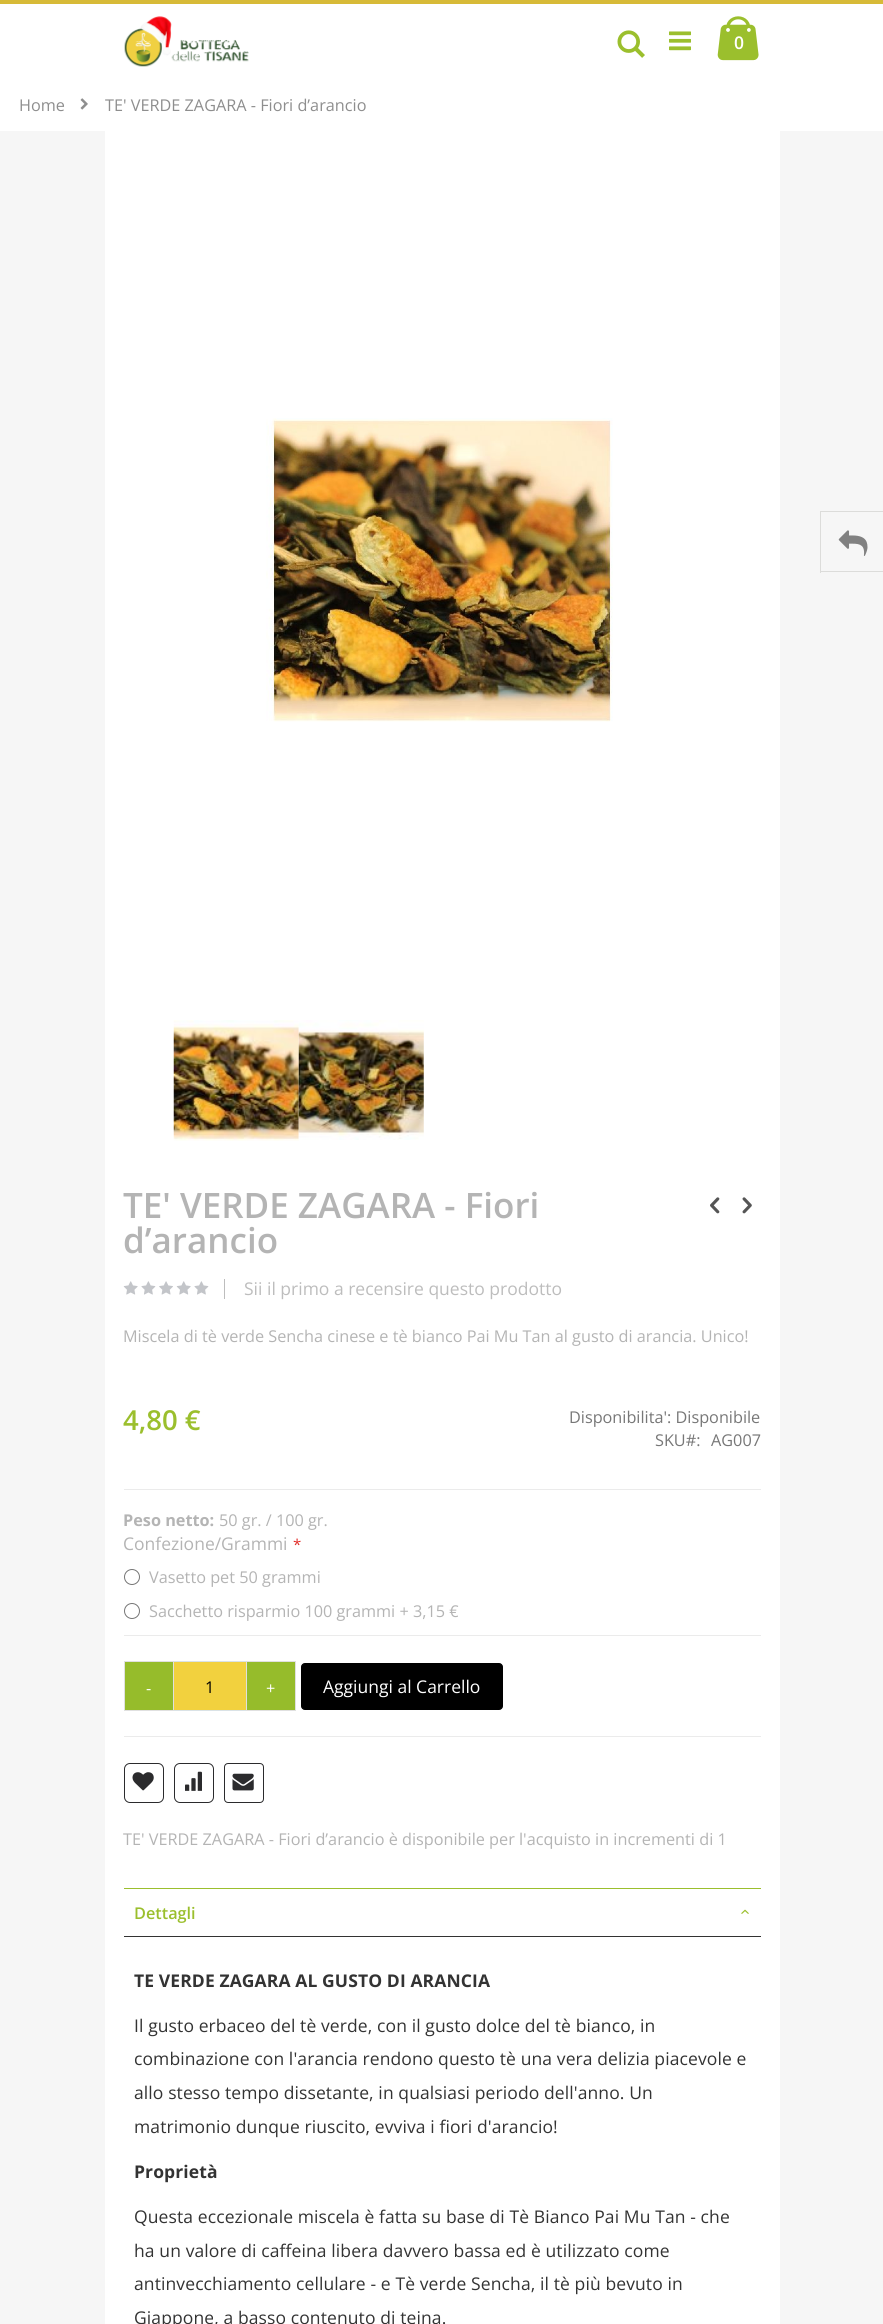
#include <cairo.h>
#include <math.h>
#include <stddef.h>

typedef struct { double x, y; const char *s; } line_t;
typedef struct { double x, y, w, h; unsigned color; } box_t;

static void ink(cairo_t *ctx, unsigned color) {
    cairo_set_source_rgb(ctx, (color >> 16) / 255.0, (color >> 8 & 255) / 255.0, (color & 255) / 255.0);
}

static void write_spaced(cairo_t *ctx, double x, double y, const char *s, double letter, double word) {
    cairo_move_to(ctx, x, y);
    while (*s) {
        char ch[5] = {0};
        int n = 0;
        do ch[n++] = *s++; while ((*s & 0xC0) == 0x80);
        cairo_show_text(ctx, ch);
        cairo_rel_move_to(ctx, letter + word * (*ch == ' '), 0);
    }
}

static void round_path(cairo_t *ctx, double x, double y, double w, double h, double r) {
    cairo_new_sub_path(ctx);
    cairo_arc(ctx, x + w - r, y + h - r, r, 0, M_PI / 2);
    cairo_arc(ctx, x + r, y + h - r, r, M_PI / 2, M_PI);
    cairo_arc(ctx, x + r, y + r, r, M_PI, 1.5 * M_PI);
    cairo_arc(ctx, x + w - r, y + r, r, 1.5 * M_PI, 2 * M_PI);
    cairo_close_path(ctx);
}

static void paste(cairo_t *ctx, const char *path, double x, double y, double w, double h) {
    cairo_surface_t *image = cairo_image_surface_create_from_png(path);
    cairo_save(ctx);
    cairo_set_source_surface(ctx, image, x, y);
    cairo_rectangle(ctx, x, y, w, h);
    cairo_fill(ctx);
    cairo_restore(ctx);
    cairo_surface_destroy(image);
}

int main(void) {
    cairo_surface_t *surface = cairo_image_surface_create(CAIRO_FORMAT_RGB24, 883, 2324);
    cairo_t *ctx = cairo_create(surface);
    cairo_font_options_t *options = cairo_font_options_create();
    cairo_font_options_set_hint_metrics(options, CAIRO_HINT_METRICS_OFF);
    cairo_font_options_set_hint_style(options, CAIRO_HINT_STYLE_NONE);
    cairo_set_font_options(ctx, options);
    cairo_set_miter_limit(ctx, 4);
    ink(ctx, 0xF6F6F6);
    cairo_paint(ctx);
    ink(ctx, 0xD7BA37);
    cairo_rectangle(ctx, 0, 0, 883, 4);
    cairo_fill(ctx);
    ink(ctx, 0xFFFFFF);
    cairo_rectangle(ctx, 0, 4, 883, 127);
    cairo_fill(ctx);
    paste(ctx, "media/1.png", 124, 16, 125, 51);
    paste(ctx, "media/2.png", 617, 30, 28, 28);
    paste(ctx, "media/3.png", 669, 31, 22, 20);
    paste(ctx, "media/4.png", 717, 16, 42, 45);
    cairo_select_font_face(ctx, "Open Sans SemiBold", CAIRO_FONT_SLANT_NORMAL, CAIRO_FONT_WEIGHT_NORMAL);
    cairo_set_font_size(ctx, 17.5);
    cairo_move_to(ctx, 734, 49);
    cairo_show_text(ctx, "0");
    cairo_select_font_face(ctx, "Open Sans", CAIRO_FONT_SLANT_NORMAL, CAIRO_FONT_WEIGHT_NORMAL);
    cairo_set_font_size(ctx, 16.25);
    ink(ctx, 0x8E8E8E);
    cairo_move_to(ctx, 19, 111);
    cairo_show_text(ctx, "Home");
    paste(ctx, "media/5.png", 80, 98, 8, 12);
    cairo_move_to(ctx, 105, 111);
    cairo_show_text(ctx, "TE' VERDE ZAGARA - Fiori d’arancio");
    {
        static const box_t items[] = {
            {105, 131, 675, 2193, 0xFFFFFF},
            {820, 511, 63, 1, 0xDCDCDA},
            {820, 571, 63, 1, 0xDCDCDA},
            {820, 511, 1, 62, 0xDCDCDA},
        };
        for (size_t i = 0; i < sizeof items / sizeof *items; i++) {
            ink(ctx, items[i].color);
            cairo_rectangle(ctx, items[i].x, items[i].y, items[i].w, items[i].h);
            cairo_fill(ctx);
        }
    }
    paste(ctx, "media/6.png", 838, 530, 30, 26);
    paste(ctx, "media/7.png", 266, 418, 347, 304);
    paste(ctx, "media/8.png", 173, 1020, 126, 121);
    paste(ctx, "media/9.png", 298, 1020, 126, 120);
    cairo_select_font_face(ctx, "Open Sans SemiBold", CAIRO_FONT_SLANT_NORMAL, CAIRO_FONT_WEIGHT_NORMAL);
    cairo_set_font_size(ctx, 35);
    ink(ctx, 0xB4B4B4);
    cairo_move_to(ctx, 123, 1218);
    cairo_show_text(ctx, "TE' VERDE ZAGARA - Fiori");
    cairo_move_to(ctx, 123, 1253);
    cairo_show_text(ctx, "d’arancio");
    paste(ctx, "media/10.png", 710, 1197, 10, 17);
    paste(ctx, "media/11.png", 742, 1197, 10, 17);
    paste(ctx, "media/12.png", 123, 1281, 86, 14);
    ink(ctx, 0xBDBDBD);
    cairo_rectangle(ctx, 224, 1279, 1, 20);
    cairo_fill(ctx);
    cairo_select_font_face(ctx, "Open Sans", CAIRO_FONT_SLANT_NORMAL, CAIRO_FONT_WEIGHT_NORMAL);
    cairo_set_font_size(ctx, 17.5);
    cairo_move_to(ctx, 244, 1295);
    cairo_show_text(ctx, "Sii il primo a recensire questo prodotto");
    cairo_set_font_size(ctx, 16.25);
    ink(ctx, 0xB4B4B4);
    cairo_move_to(ctx, 123, 1342);
    cairo_show_text(ctx, "Miscela di tè verde Sencha cinese e tè bianco Pai Mu Tan al gusto di arancia. Unico!");
    ink(ctx, 0xEBEBEB);
    cairo_rectangle(ctx, 124, 1489, 637, 1);
    cairo_fill(ctx);
    cairo_select_font_face(ctx, "Open Sans SemiBold", CAIRO_FONT_SLANT_NORMAL, CAIRO_FONT_WEIGHT_NORMAL);
    cairo_set_font_size(ctx, 27.5);
    ink(ctx, 0x9BBF2D);
    cairo_move_to(ctx, 123, 1430);
    cairo_show_text(ctx, "4,80 €");
    cairo_select_font_face(ctx, "Open Sans", CAIRO_FONT_SLANT_NORMAL, CAIRO_FONT_WEIGHT_NORMAL);
    cairo_set_font_size(ctx, 16.25);
    ink(ctx, 0x777777);
    {
        static const line_t items[] = {
            {569, 1423, "Disponibilita': Disponibile"},
            {655, 1446, "SKU#:"},
            {711, 1446, "AG007"},
        };
        for (size_t i = 0; i < sizeof items / sizeof *items; i++) {
            cairo_move_to(ctx, items[i].x, items[i].y);
            cairo_show_text(ctx, items[i].s);
        }
    }
    cairo_select_font_face(ctx, "Open Sans", CAIRO_FONT_SLANT_NORMAL, CAIRO_FONT_WEIGHT_BOLD);
    ink(ctx, 0xB4B4B4);
    cairo_move_to(ctx, 123, 1526);
    cairo_show_text(ctx, "Peso netto:");
    cairo_select_font_face(ctx, "Open Sans", CAIRO_FONT_SLANT_NORMAL, CAIRO_FONT_WEIGHT_NORMAL);
    cairo_move_to(ctx, 219, 1526);
    cairo_show_text(ctx, "50 gr. / 100 gr.");
    ink(ctx, 0xEBEBEB);
    cairo_rectangle(ctx, 124, 1635, 637, 1);
    cairo_fill(ctx);
    cairo_set_font_size(ctx, 17.5);
    ink(ctx, 0xB4B4B4);
    cairo_move_to(ctx, 123, 1550);
    cairo_show_text(ctx, "Confezione/Grammi");
    cairo_set_font_size(ctx, 15);
    ink(ctx, 0xE02B27);
    cairo_move_to(ctx, 293, 1550);
    cairo_show_text(ctx, "*");
    cairo_new_path(ctx);
    cairo_arc(ctx, 132, 1577, 7.5, 0, 2 * M_PI);
    ink(ctx, 0x767676);
    cairo_set_line_width(ctx, 1);
    cairo_stroke(ctx);
    cairo_set_font_size(ctx, 16.25);
    ink(ctx, 0xB4B4B4);
    cairo_move_to(ctx, 149, 1583);
    cairo_show_text(ctx, "Vasetto pet 50 grammi");
    cairo_new_path(ctx);
    cairo_arc(ctx, 132, 1611, 7.5, 0, 2 * M_PI);
    ink(ctx, 0x767676);
    cairo_stroke(ctx);
    ink(ctx, 0xB4B4B4);
    cairo_move_to(ctx, 149, 1617);
    cairo_show_text(ctx, "Sacchetto risparmio 100 grammi + 3,15 €");
    ink(ctx, 0xF2D13E);
    cairo_rectangle(ctx, 174, 1662, 72, 48);
    cairo_fill(ctx);
    cairo_rectangle(ctx, 173.5, 1661.5, 74, 49);
    ink(ctx, 0xDAE2E6);
    cairo_stroke(ctx);
    ink(ctx, 0x96BC2B);
    cairo_rectangle(ctx, 124.5, 1661.5, 49, 49);
    cairo_fill_preserve(ctx);
    ink(ctx, 0xE0E0E0);
    cairo_stroke(ctx);
    ink(ctx, 0xFFFFFF);
    cairo_move_to(ctx, 146, 1694);
    cairo_show_text(ctx, "-");
    ink(ctx, 0x000000);
    cairo_move_to(ctx, 205, 1693);
    cairo_show_text(ctx, "1");
    ink(ctx, 0x96BC2B);
    cairo_rectangle(ctx, 246.5, 1661.5, 49, 49);
    cairo_fill_preserve(ctx);
    ink(ctx, 0xE0E0E0);
    cairo_stroke(ctx);
    ink(ctx, 0xFFFFFF);
    cairo_move_to(ctx, 266, 1694);
    cairo_show_text(ctx, "+");
    ink(ctx, 0x000000);
    round_path(ctx, 301.5, 1663.5, 201, 46, 3.5);
    cairo_fill_preserve(ctx);
    cairo_stroke(ctx);
    cairo_set_font_size(ctx, 17.5);
    ink(ctx, 0xFFFFFF);
    cairo_move_to(ctx, 323, 1693);
    cairo_show_text(ctx, "Aggiungi al Carrello");
    ink(ctx, 0xEBEBEB);
    cairo_rectangle(ctx, 124, 1736, 637, 1);
    cairo_fill(ctx);
    round_path(ctx, 124.5, 1763.5, 39, 39, 5.5);
    ink(ctx, 0x2B2B2D);
    cairo_stroke(ctx);
    paste(ctx, "media/13.png", 132, 1772, 22, 19);
    round_path(ctx, 174.5, 1763.5, 39, 39, 5.5);
    cairo_stroke(ctx);
    paste(ctx, "media/14.png", 185, 1771, 17, 20);
    round_path(ctx, 224.5, 1763.5, 39, 39, 3.5);
    cairo_stroke(ctx);
    paste(ctx, "media/15.png", 232, 1773, 22, 18);
    cairo_set_font_size(ctx, 16.25);
    ink(ctx, 0xB4B4B4);
    cairo_move_to(ctx, 123, 1845);
    cairo_show_text(ctx, "TE' VERDE ZAGARA - Fiori d’arancio è disponibile per l'acquisto in incrementi di 1");
    ink(ctx, 0x9BBF2D);
    cairo_rectangle(ctx, 124, 1888, 637, 1);
    cairo_fill(ctx);
    ink(ctx, 0x333333);
    cairo_rectangle(ctx, 124, 1936, 637, 1);
    cairo_fill(ctx);
    cairo_select_font_face(ctx, "Open Sans SemiBold", CAIRO_FONT_SLANT_NORMAL, CAIRO_FONT_WEIGHT_NORMAL);
    ink(ctx, 0x9BBF2D);
    cairo_move_to(ctx, 134, 1919);
    cairo_show_text(ctx, "Dettagli");
    paste(ctx, "media/16.png", 741, 1909, 8, 5);
    cairo_select_font_face(ctx, "Open Sans", CAIRO_FONT_SLANT_NORMAL, CAIRO_FONT_WEIGHT_BOLD);
    cairo_set_font_size(ctx, 17.5);
    ink(ctx, 0x333333);
    write_spaced(ctx, 134, 1987, "TE VERDE ZAGARA AL GUSTO DI ARANCIA", 0.1, 0);
    cairo_select_font_face(ctx, "Open Sans", CAIRO_FONT_SLANT_NORMAL, CAIRO_FONT_WEIGHT_NORMAL);
    {
        static const line_t items[] = {
            {134, 2032, "Il gusto erbaceo del tè verde, con il gusto dolce del tè bianco, in"},
            {134, 2065, "combinazione con l'arancia rendono questo tè una vera delizia piacevole e"},
            {134, 2099, "allo stesso tempo dissetante, in qualsiasi periodo dell'anno. Un"},
            {134, 2133, "matrimonio dunque riuscito, evviva i fiori d'arancio!"},
        };
        for (size_t i = 0; i < sizeof items / sizeof *items; i++) {
            write_spaced(ctx, items[i].x, items[i].y, items[i].s, 0.1, 0);
        }
    }
    cairo_select_font_face(ctx, "Open Sans", CAIRO_FONT_SLANT_NORMAL, CAIRO_FONT_WEIGHT_BOLD);
    write_spaced(ctx, 134, 2178, "Proprietà", 0.1, 0);
    cairo_select_font_face(ctx, "Open Sans", CAIRO_FONT_SLANT_NORMAL, CAIRO_FONT_WEIGHT_NORMAL);
    {
        static const line_t items[] = {
            {134, 2223, "Questa eccezionale miscela è fatta su base di Tè Bianco Pai Mu Tan - che"},
            {134, 2257, "ha un valore di caffeina libera davvero bassa ed è utilizzato come"},
            {134, 2290, "antinvecchiamento cellulare - e Tè verde Sencha, il tè più bevuto in"},
            {134, 2324, "Giappone, a basso contenuto di teina."},
        };
        for (size_t i = 0; i < sizeof items / sizeof *items; i++) {
            write_spaced(ctx, items[i].x, items[i].y, items[i].s, 0.1, 0);
        }
    }
    cairo_surface_write_to_png(surface, "image.png");
    cairo_font_options_destroy(options);
    cairo_destroy(ctx);
    cairo_surface_destroy(surface);
    return 0;
}
